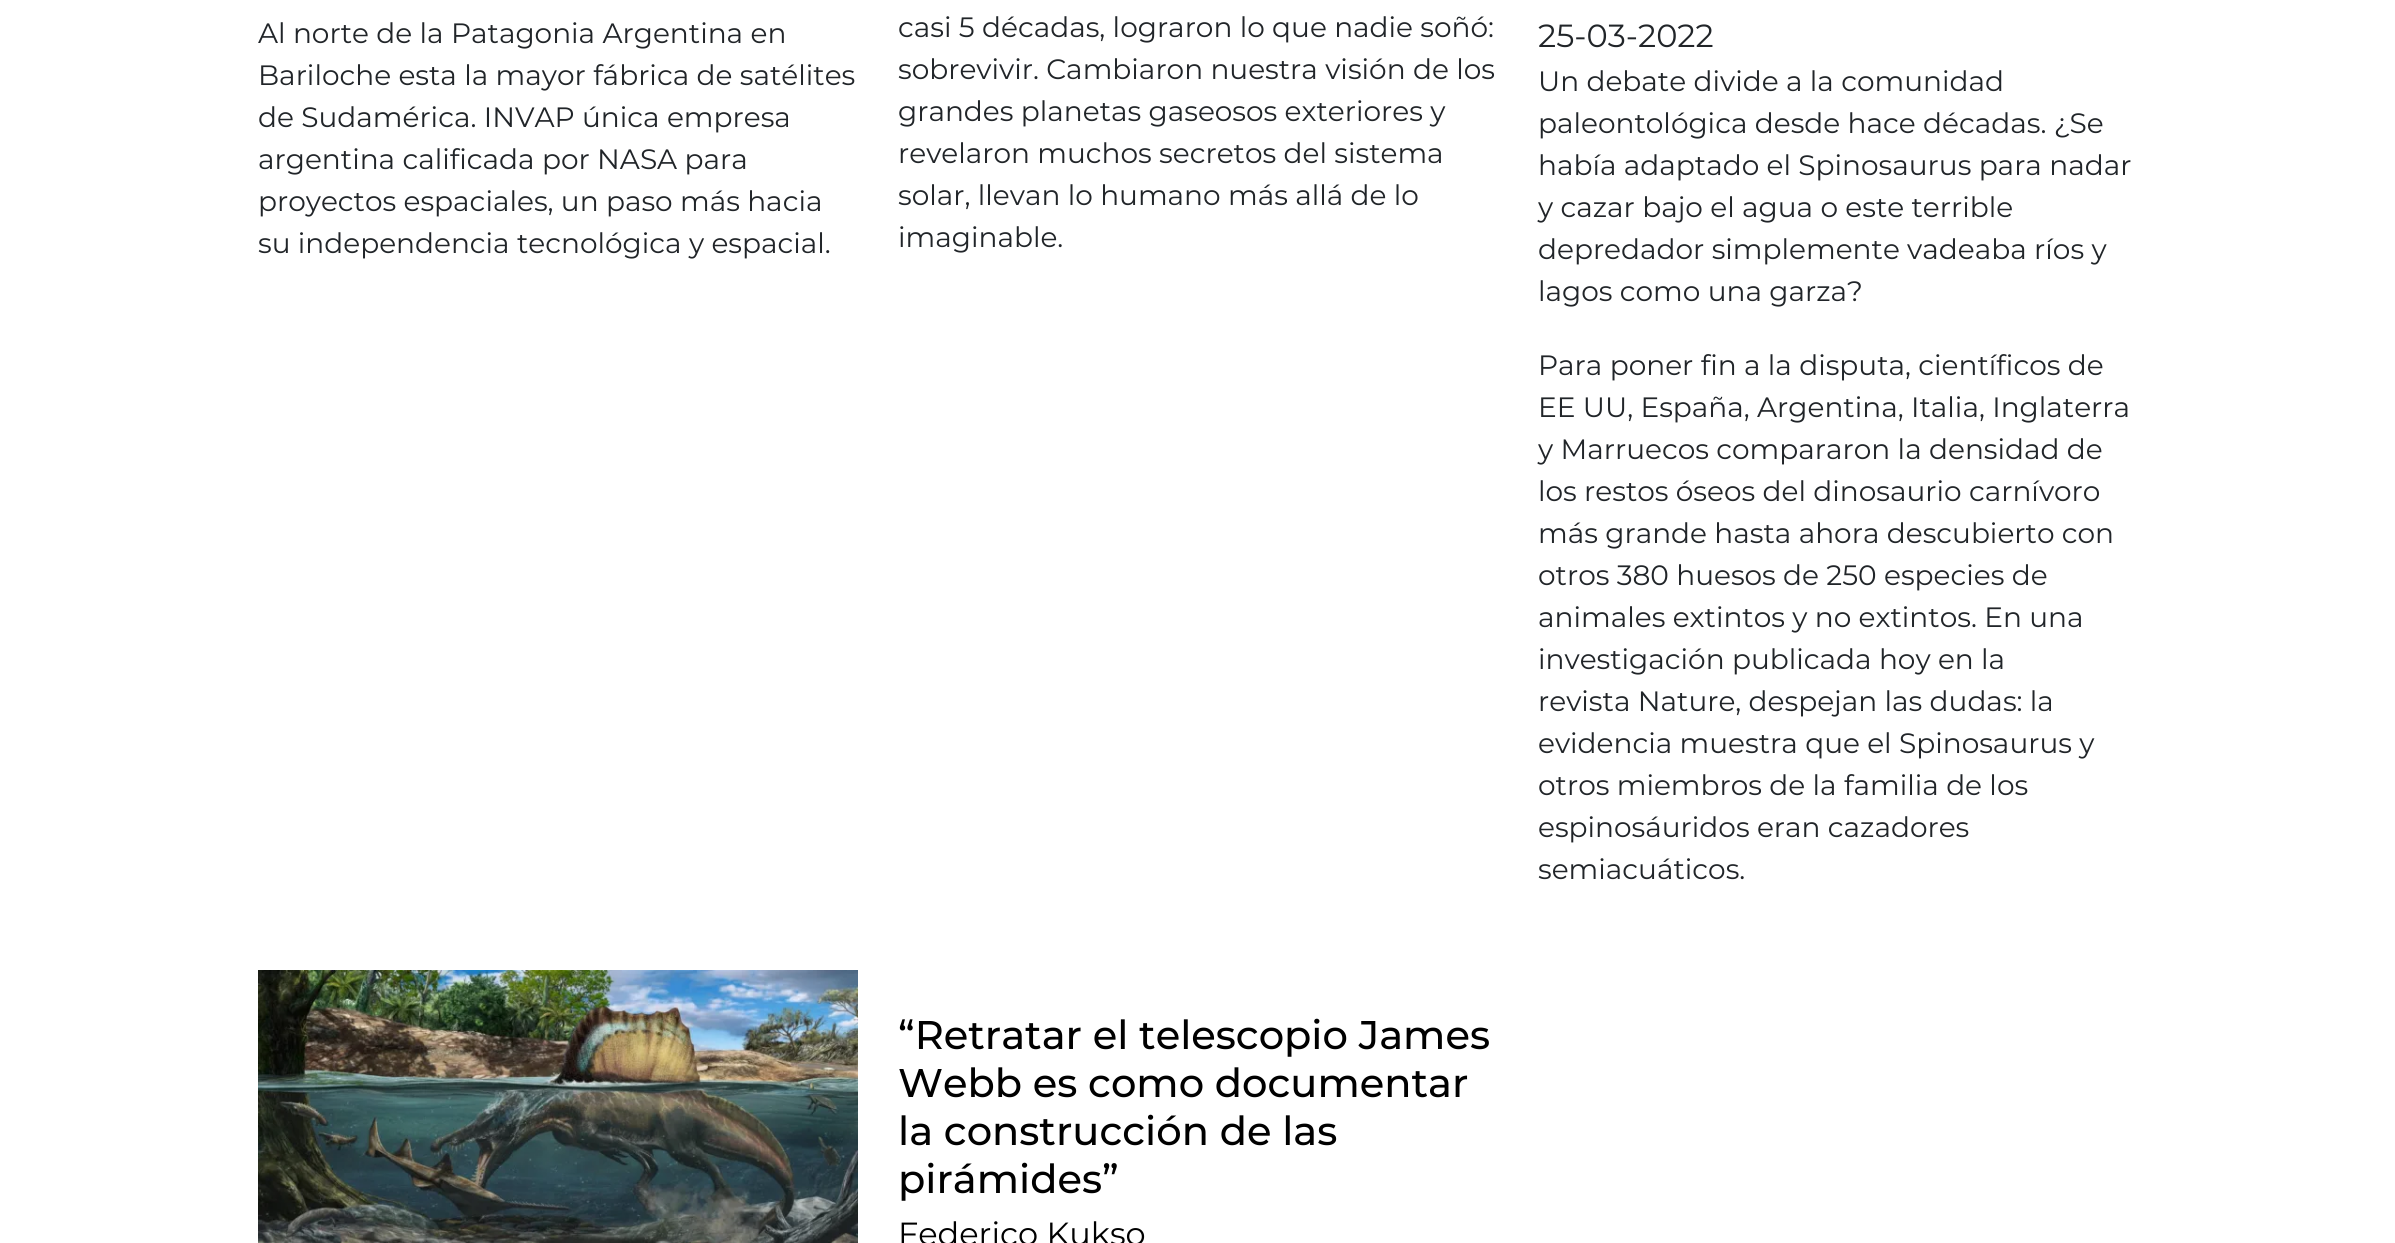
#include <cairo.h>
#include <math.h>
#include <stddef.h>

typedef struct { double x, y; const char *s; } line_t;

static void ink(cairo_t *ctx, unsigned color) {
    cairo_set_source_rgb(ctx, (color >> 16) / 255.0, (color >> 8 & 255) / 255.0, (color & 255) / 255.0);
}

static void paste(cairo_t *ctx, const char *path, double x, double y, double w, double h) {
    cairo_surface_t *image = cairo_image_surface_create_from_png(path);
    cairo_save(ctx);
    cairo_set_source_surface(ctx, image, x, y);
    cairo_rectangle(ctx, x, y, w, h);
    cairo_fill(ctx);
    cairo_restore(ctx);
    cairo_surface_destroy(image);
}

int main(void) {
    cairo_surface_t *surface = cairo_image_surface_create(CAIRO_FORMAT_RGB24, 2395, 1243);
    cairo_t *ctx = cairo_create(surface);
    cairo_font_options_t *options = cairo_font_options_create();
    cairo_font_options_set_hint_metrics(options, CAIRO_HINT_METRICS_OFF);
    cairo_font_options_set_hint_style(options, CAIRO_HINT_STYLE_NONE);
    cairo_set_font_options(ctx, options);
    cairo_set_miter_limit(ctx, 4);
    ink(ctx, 0xFFFFFF);
    cairo_paint(ctx);
    cairo_select_font_face(ctx, "Montserrat", CAIRO_FONT_SLANT_NORMAL, CAIRO_FONT_WEIGHT_NORMAL);
    cairo_set_font_size(ctx, 28);
    ink(ctx, 0x212529);
    {
        static const line_t items[] = {
            {258, 43, "Al norte de la Patagonia Argentina en"},
            {258, 85, "Bariloche esta la mayor fábrica de satélites"},
            {258, 127, "de Sudamérica. INVAP única empresa"},
            {258, 169, "argentina calificada por NASA para"},
            {258, 211, "proyectos espaciales, un paso más hacia"},
            {258, 253, "su independencia tecnológica y espacial."},
            {898, 37, "casi 5 décadas, lograron lo que nadie soñó:"},
            {898, 79, "sobrevivir. Cambiaron nuestra visión de los"},
            {898, 121, "grandes planetas gaseosos exteriores y"},
            {898, 163, "revelaron muchos secretos del sistema"},
            {898, 205, "solar, llevan lo humano más allá de lo"},
            {898, 247, "imaginable."},
        };
        for (size_t i = 0; i < sizeof items / sizeof *items; i++) {
            cairo_move_to(ctx, items[i].x, items[i].y);
            cairo_show_text(ctx, items[i].s);
        }
    }
    cairo_set_font_size(ctx, 32);
    cairo_move_to(ctx, 1538, 47);
    cairo_show_text(ctx, "25-03-2022");
    cairo_set_font_size(ctx, 28);
    {
        static const line_t items[] = {
            {1538, 91, "Un debate divide a la comunidad"},
            {1538, 133, "paleontológica desde hace décadas. ¿Se"},
            {1538, 175, "había adaptado el Spinosaurus para nadar"},
            {1538, 217, "y cazar bajo el agua o este terrible"},
            {1538, 259, "depredador simplemente vadeaba ríos y"},
            {1538, 301, "lagos como una garza?"},
            {1538, 375, "Para poner fin a la disputa, científicos de"},
            {1538, 417, "EE UU, España, Argentina, Italia, Inglaterra"},
            {1538, 459, "y Marruecos compararon la densidad de"},
            {1538, 501, "los restos óseos del dinosaurio carnívoro"},
            {1538, 543, "más grande hasta ahora descubierto con"},
            {1538, 585, "otros 380 huesos de 250 especies de"},
            {1538, 627, "animales extintos y no extintos. En una"},
            {1538, 669, "investigación publicada hoy en la"},
            {1538, 711, "revista Nature, despejan las dudas: la"},
            {1538, 753, "evidencia muestra que el Spinosaurus y"},
            {1538, 795, "otros miembros de la familia de los"},
            {1538, 837, "espinosáuridos eran cazadores"},
            {1538, 879, "semiacuáticos."},
        };
        for (size_t i = 0; i < sizeof items / sizeof *items; i++) {
            cairo_move_to(ctx, items[i].x, items[i].y);
            cairo_show_text(ctx, items[i].s);
        }
    }
    paste(ctx, "media/1.png", 258, 970, 600, 273);
    cairo_select_font_face(ctx, "Montserrat Medium", CAIRO_FONT_SLANT_NORMAL, CAIRO_FONT_WEIGHT_NORMAL);
    cairo_set_font_size(ctx, 40);
    ink(ctx, 0x000000);
    {
        static const line_t items[] = {
            {898, 1049, "“Retratar el telescopio James"},
            {898, 1097, "Webb es como documentar"},
            {898, 1145, "la construcción de las"},
            {898, 1193, "pirámides”"},
        };
        for (size_t i = 0; i < sizeof items / sizeof *items; i++) {
            cairo_move_to(ctx, items[i].x, items[i].y);
            cairo_show_text(ctx, items[i].s);
        }
    }
    cairo_select_font_face(ctx, "Montserrat", CAIRO_FONT_SLANT_NORMAL, CAIRO_FONT_WEIGHT_NORMAL);
    cairo_set_font_size(ctx, 32);
    cairo_move_to(ctx, 898, 1245);
    cairo_show_text(ctx, "Federico Kukso");
    cairo_surface_write_to_png(surface, "image.png");
    cairo_font_options_destroy(options);
    cairo_destroy(ctx);
    cairo_surface_destroy(surface);
    return 0;
}
